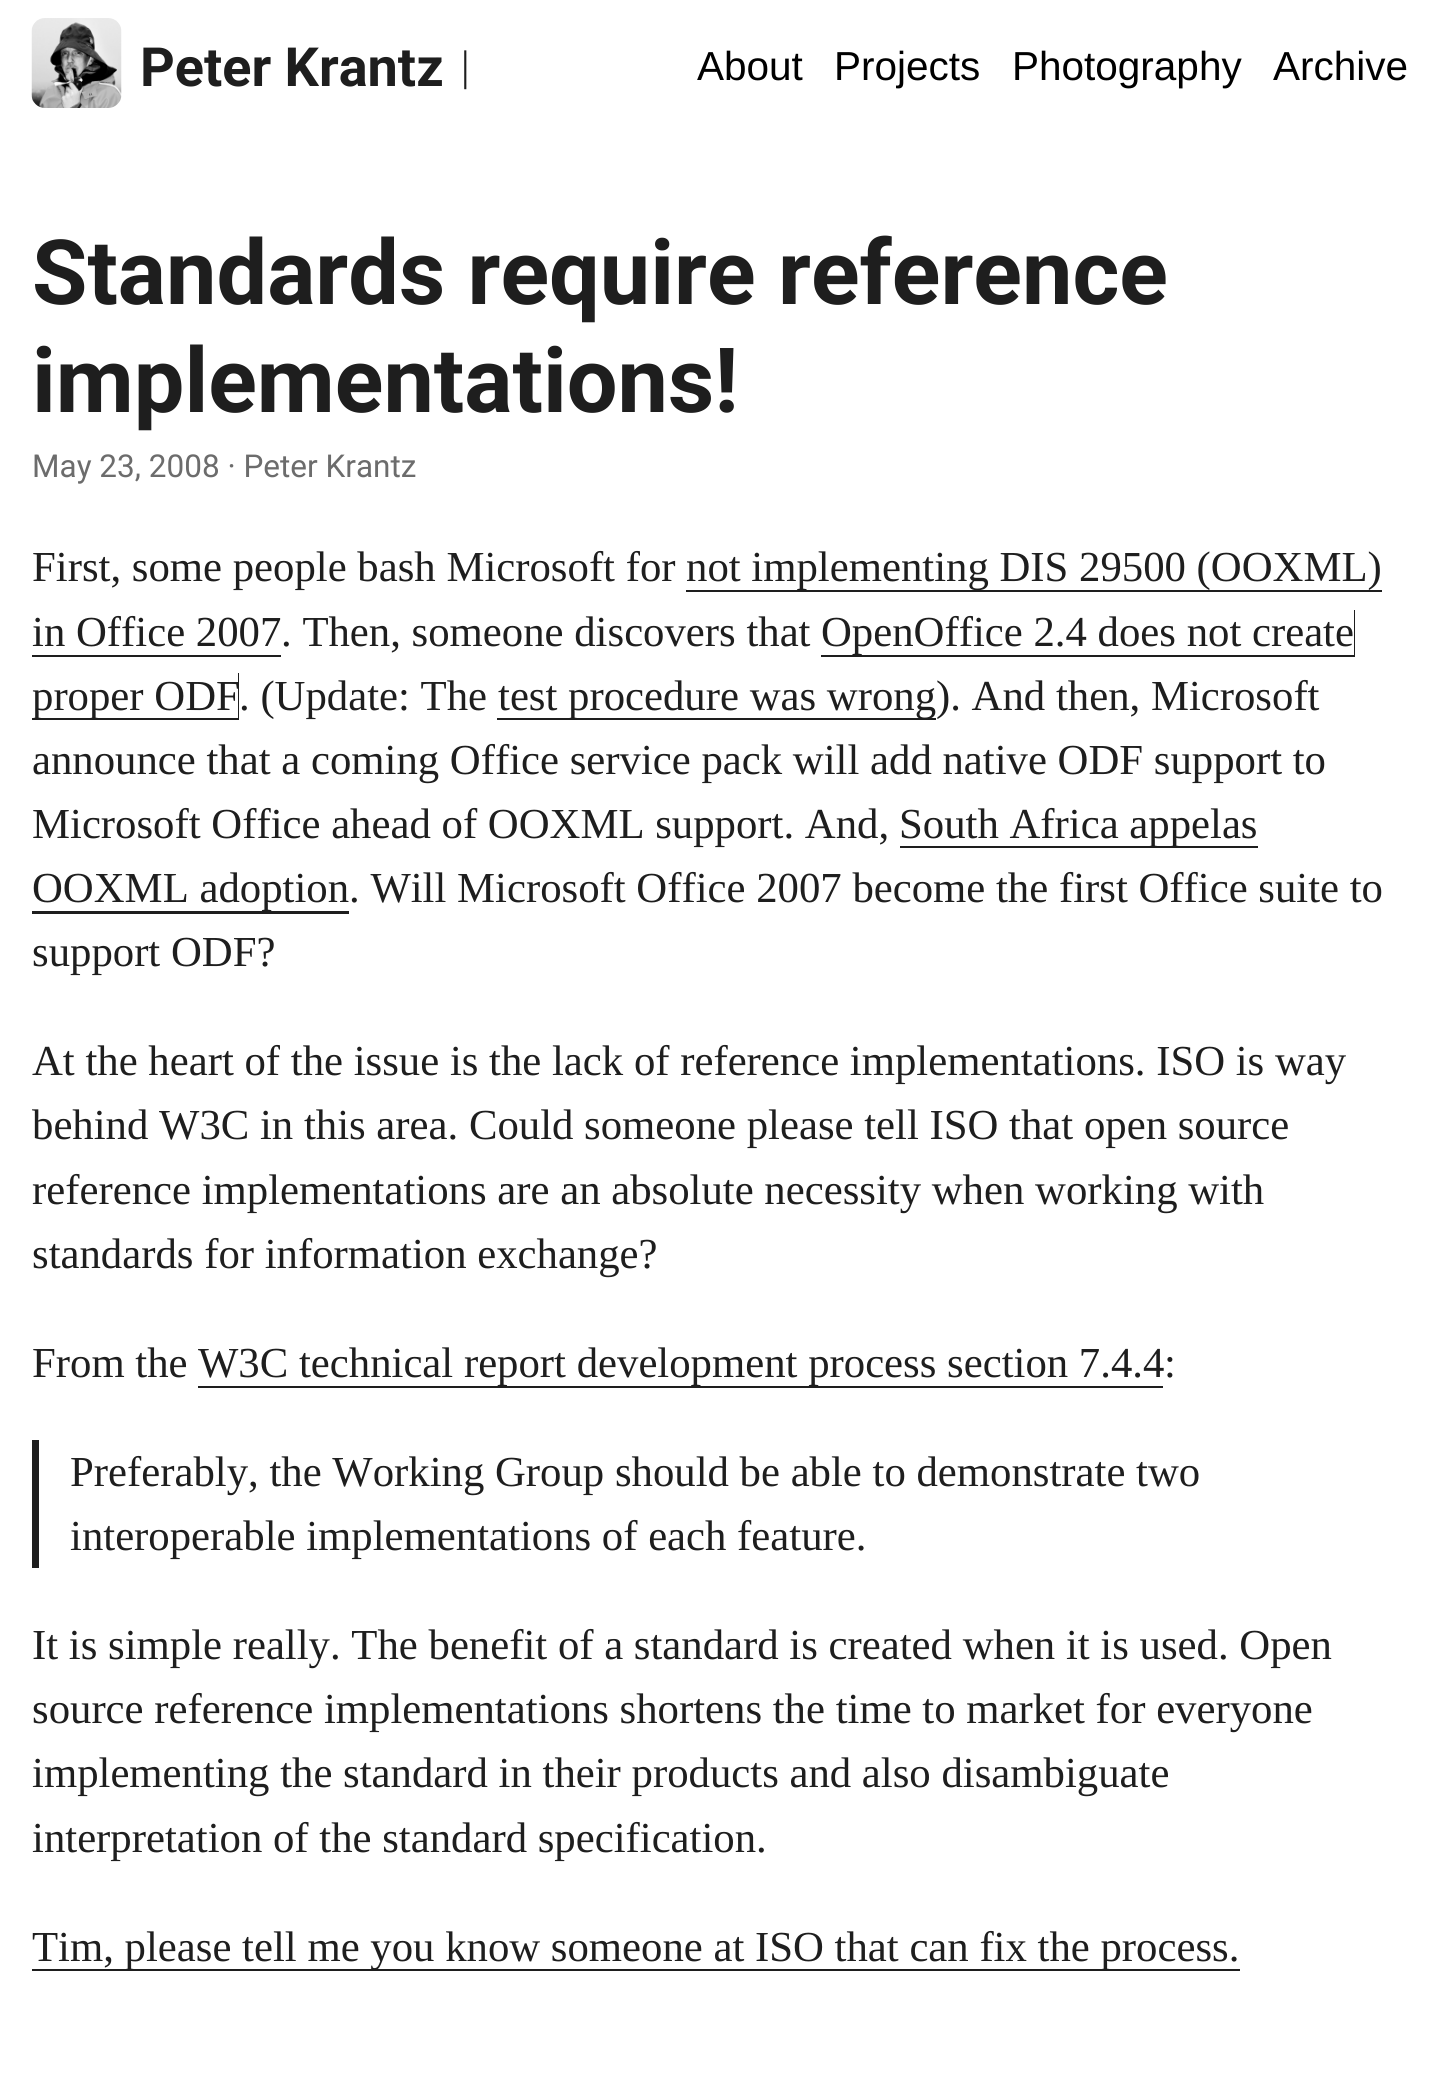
#include <cairo.h>
#include <math.h>
#include <stddef.h>

typedef struct { double x, y; const char *s; } line_t;

static void ink(cairo_t *ctx, unsigned color) {
    cairo_set_source_rgb(ctx, (color >> 16) / 255.0, (color >> 8 & 255) / 255.0, (color & 255) / 255.0);
}

static void paste(cairo_t *ctx, const char *path, double x, double y, double w, double h) {
    cairo_surface_t *image = cairo_image_surface_create_from_png(path);
    cairo_save(ctx);
    cairo_set_source_surface(ctx, image, x, y);
    cairo_rectangle(ctx, x, y, w, h);
    cairo_fill(ctx);
    cairo_restore(ctx);
    cairo_surface_destroy(image);
}

int main(void) {
    cairo_surface_t *surface = cairo_image_surface_create(CAIRO_FORMAT_RGB24, 1439, 2093);
    cairo_t *ctx = cairo_create(surface);
    cairo_font_options_t *options = cairo_font_options_create();
    cairo_font_options_set_hint_metrics(options, CAIRO_HINT_METRICS_OFF);
    cairo_font_options_set_hint_style(options, CAIRO_HINT_STYLE_NONE);
    cairo_set_font_options(ctx, options);
    cairo_set_miter_limit(ctx, 4);
    ink(ctx, 0xFFFFFF);
    cairo_paint(ctx);
    paste(ctx, "media/1.png", 31, 18, 91, 90);
    cairo_select_font_face(ctx, "Roboto", CAIRO_FONT_SLANT_NORMAL, CAIRO_FONT_WEIGHT_BOLD);
    cairo_set_font_size(ctx, 54);
    ink(ctx, 0x1E1E1E);
    cairo_move_to(ctx, 140, 86);
    cairo_show_text(ctx, "Peter Krantz");
    cairo_select_font_face(ctx, "Liberation Serif", CAIRO_FONT_SLANT_NORMAL, CAIRO_FONT_WEIGHT_NORMAL);
    cairo_set_font_size(ctx, 42.75);
    cairo_move_to(ctx, 461, 80);
    cairo_show_text(ctx, "|");
    cairo_select_font_face(ctx, "Liberation Sans", CAIRO_FONT_SLANT_NORMAL, CAIRO_FONT_WEIGHT_NORMAL);
    cairo_set_font_size(ctx, 40.5);
    ink(ctx, 0x000000);
    {
        static const line_t items[] = {
            {697, 80, "About"},
            {834, 80, "Projects"},
            {1012, 80, "Photography"},
            {1273, 80, "Archive"},
        };
        for (size_t i = 0; i < sizeof items / sizeof *items; i++) {
            cairo_move_to(ctx, items[i].x, items[i].y);
            cairo_show_text(ctx, items[i].s);
        }
    }
    cairo_select_font_face(ctx, "Roboto", CAIRO_FONT_SLANT_NORMAL, CAIRO_FONT_WEIGHT_BOLD);
    cairo_set_font_size(ctx, 90);
    ink(ctx, 0x1E1E1E);
    cairo_move_to(ctx, 32, 304);
    cairo_show_text(ctx, "Standards require reference");
    cairo_move_to(ctx, 32, 412);
    cairo_show_text(ctx, "implementations!");
    cairo_select_font_face(ctx, "Roboto", CAIRO_FONT_SLANT_NORMAL, CAIRO_FONT_WEIGHT_NORMAL);
    cairo_set_font_size(ctx, 31.5);
    ink(ctx, 0x6C6C6C);
    cairo_move_to(ctx, 32, 477);
    cairo_show_text(ctx, "May 23, 2008 · Peter Krantz");
    cairo_select_font_face(ctx, "Liberation Serif", CAIRO_FONT_SLANT_NORMAL, CAIRO_FONT_WEIGHT_NORMAL);
    cairo_set_font_size(ctx, 42.75);
    ink(ctx, 0x1E1E1E);
    cairo_move_to(ctx, 32, 581);
    cairo_show_text(ctx, "First, some people bash Microsoft for");
    cairo_new_path(ctx);
    cairo_move_to(ctx, 686, 545);
    cairo_line_to(ctx, 686, 592);
    cairo_line_to(ctx, 1382, 592);
    cairo_line_to(ctx, 1382, 545);
    cairo_line_to(ctx, 1382, 590);
    cairo_line_to(ctx, 686, 590);
    cairo_close_path(ctx);
    cairo_fill(ctx);
    cairo_move_to(ctx, 686, 581);
    cairo_show_text(ctx, "not implementing DIS 29500 (OOXML)");
    cairo_move_to(ctx, 32, 646);
    cairo_show_text(ctx, "in Office 2007");
    cairo_rectangle(ctx, 32, 655, 249, 2);
    cairo_fill(ctx);
    cairo_move_to(ctx, 281, 646);
    cairo_show_text(ctx, ". Then, someone discovers that");
    cairo_new_path(ctx);
    cairo_move_to(ctx, 821, 610);
    cairo_line_to(ctx, 821, 657);
    cairo_line_to(ctx, 1355, 657);
    cairo_line_to(ctx, 1355, 610);
    cairo_line_to(ctx, 1354, 610);
    cairo_line_to(ctx, 1354, 655);
    cairo_line_to(ctx, 821, 655);
    cairo_close_path(ctx);
    cairo_fill(ctx);
    cairo_move_to(ctx, 821, 646);
    cairo_show_text(ctx, "OpenOffice 2.4 does not create");
    cairo_new_path(ctx);
    cairo_move_to(ctx, 32, 718);
    cairo_line_to(ctx, 32, 720);
    cairo_line_to(ctx, 239, 720);
    cairo_line_to(ctx, 239, 673);
    cairo_line_to(ctx, 238, 673);
    cairo_line_to(ctx, 238, 718);
    cairo_close_path(ctx);
    cairo_fill(ctx);
    cairo_move_to(ctx, 32, 710);
    cairo_show_text(ctx, "proper ODF");
    cairo_move_to(ctx, 239, 710);
    cairo_show_text(ctx, ". (Update: The");
    cairo_new_path(ctx);
    cairo_move_to(ctx, 497, 673);
    cairo_line_to(ctx, 497, 720);
    cairo_line_to(ctx, 936, 720);
    cairo_line_to(ctx, 936, 718);
    cairo_line_to(ctx, 497, 718);
    cairo_close_path(ctx);
    cairo_fill(ctx);
    {
        static const line_t items[] = {
            {498, 710, "test procedure was wrong"},
            {936, 710, "). And then, Microsoft"},
            {32, 774, "announce that a coming Office service pack will add native ODF support to"},
            {32, 838, "Microsoft Office ahead of OOXML support. And,"},
        };
        for (size_t i = 0; i < sizeof items / sizeof *items; i++) {
            cairo_move_to(ctx, items[i].x, items[i].y);
            cairo_show_text(ctx, items[i].s);
        }
    }
    cairo_new_path(ctx);
    cairo_move_to(ctx, 900, 846);
    cairo_line_to(ctx, 900, 848);
    cairo_line_to(ctx, 1258, 848);
    cairo_line_to(ctx, 1258, 801);
    cairo_line_to(ctx, 1258, 846);
    cairo_close_path(ctx);
    cairo_fill(ctx);
    cairo_move_to(ctx, 899, 838);
    cairo_show_text(ctx, "South Africa appelas");
    cairo_new_path(ctx);
    cairo_move_to(ctx, 32, 911);
    cairo_line_to(ctx, 32, 914);
    cairo_line_to(ctx, 349, 914);
    cairo_line_to(ctx, 349, 866);
    cairo_line_to(ctx, 349, 911);
    cairo_close_path(ctx);
    cairo_fill(ctx);
    {
        static const line_t items[] = {
            {32, 902, "OOXML adoption"},
            {349, 902, ". Will Microsoft Office 2007 become the first Office suite to"},
            {32, 966, "support ODF?"},
            {32, 1075, "At the heart of the issue is the lack of reference implementations. ISO is way"},
            {32, 1139, "behind W3C in this area. Could someone please tell ISO that open source"},
            {32, 1204, "reference implementations are an absolute necessity when working with"},
            {32, 1268, "standards for information exchange?"},
            {32, 1377, "From the"},
        };
        for (size_t i = 0; i < sizeof items / sizeof *items; i++) {
            cairo_move_to(ctx, items[i].x, items[i].y);
            cairo_show_text(ctx, items[i].s);
        }
    }
    cairo_rectangle(ctx, 198, 1386, 965, 2);
    cairo_fill(ctx);
    cairo_move_to(ctx, 198, 1377);
    cairo_show_text(ctx, "W3C technical report development process section 7.4.4");
    cairo_move_to(ctx, 1164, 1377);
    cairo_show_text(ctx, ":");
    cairo_rectangle(ctx, 32, 1440, 7, 128);
    cairo_fill(ctx);
    {
        static const line_t items[] = {
            {70, 1486, "Preferably, the Working Group should be able to demonstrate two"},
            {70, 1550, "interoperable implementations of each feature."},
            {32, 1659, "It is simple really. The benefit of a standard is created when it is used. Open"},
            {32, 1723, "source reference implementations shortens the time to market for everyone"},
            {32, 1787, "implementing the standard in their products and also disambiguate"},
            {32, 1852, "interpretation of the standard specification."},
        };
        for (size_t i = 0; i < sizeof items / sizeof *items; i++) {
            cairo_move_to(ctx, items[i].x, items[i].y);
            cairo_show_text(ctx, items[i].s);
        }
    }
    cairo_new_path(ctx);
    cairo_move_to(ctx, 32, 1969);
    cairo_line_to(ctx, 32, 1971);
    cairo_line_to(ctx, 1240, 1971);
    cairo_line_to(ctx, 1240, 1924);
    cairo_line_to(ctx, 1240, 1969);
    cairo_close_path(ctx);
    cairo_fill(ctx);
    cairo_move_to(ctx, 32, 1961);
    cairo_show_text(ctx, "Tim, please tell me you know someone at ISO that can fix the process.");
    cairo_surface_write_to_png(surface, "image.png");
    cairo_font_options_destroy(options);
    cairo_destroy(ctx);
    cairo_surface_destroy(surface);
    return 0;
}
